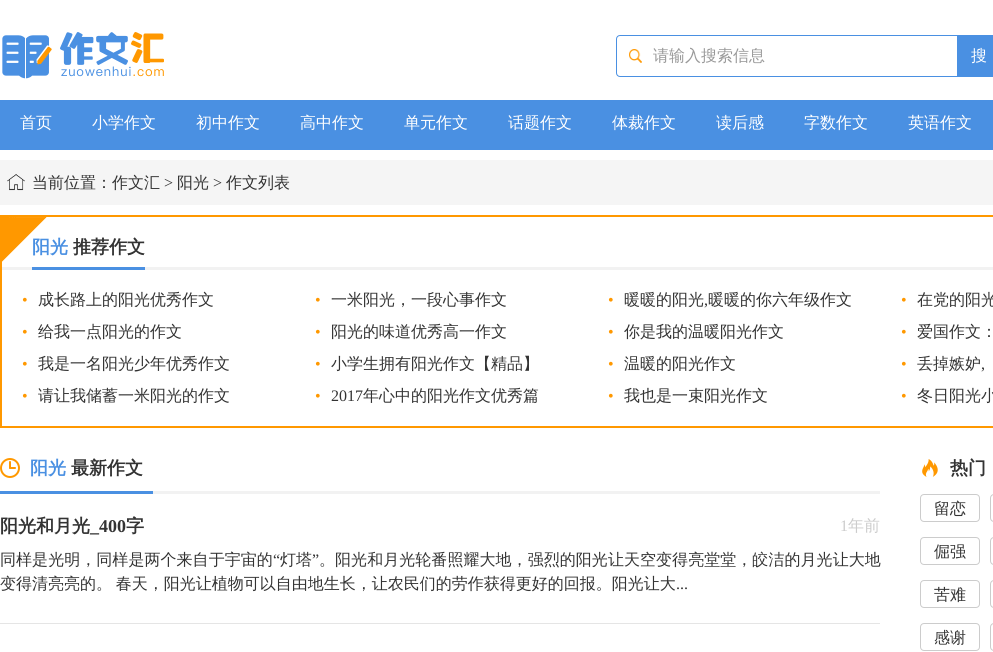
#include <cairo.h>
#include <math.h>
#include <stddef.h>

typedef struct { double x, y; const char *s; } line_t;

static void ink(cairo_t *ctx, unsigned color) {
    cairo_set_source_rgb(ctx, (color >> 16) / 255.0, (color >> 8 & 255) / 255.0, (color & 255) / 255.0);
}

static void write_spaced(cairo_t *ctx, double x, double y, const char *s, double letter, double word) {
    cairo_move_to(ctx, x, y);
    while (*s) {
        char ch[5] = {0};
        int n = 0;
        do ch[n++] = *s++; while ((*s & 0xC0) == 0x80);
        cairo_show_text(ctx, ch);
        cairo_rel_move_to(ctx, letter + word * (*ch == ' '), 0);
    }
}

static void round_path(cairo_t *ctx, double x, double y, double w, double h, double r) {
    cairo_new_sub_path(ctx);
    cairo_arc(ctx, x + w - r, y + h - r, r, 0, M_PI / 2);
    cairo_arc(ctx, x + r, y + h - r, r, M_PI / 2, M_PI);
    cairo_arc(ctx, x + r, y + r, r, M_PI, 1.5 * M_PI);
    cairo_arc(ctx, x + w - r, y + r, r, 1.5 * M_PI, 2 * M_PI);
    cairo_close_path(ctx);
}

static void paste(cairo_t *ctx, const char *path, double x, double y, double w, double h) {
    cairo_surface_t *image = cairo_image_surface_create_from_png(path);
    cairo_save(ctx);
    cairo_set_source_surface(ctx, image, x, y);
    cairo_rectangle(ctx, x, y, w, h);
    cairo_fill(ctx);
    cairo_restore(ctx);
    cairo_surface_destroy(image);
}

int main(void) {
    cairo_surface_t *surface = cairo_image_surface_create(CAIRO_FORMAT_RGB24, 993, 652);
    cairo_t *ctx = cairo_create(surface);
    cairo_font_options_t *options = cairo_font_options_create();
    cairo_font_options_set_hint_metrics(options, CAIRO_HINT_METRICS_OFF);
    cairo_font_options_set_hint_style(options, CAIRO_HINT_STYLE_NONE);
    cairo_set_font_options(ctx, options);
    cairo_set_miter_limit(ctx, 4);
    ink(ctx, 0xFFFFFF);
    cairo_paint(ctx);
    paste(ctx, "media/1.png", 2, 32, 162, 47);
    round_path(ctx, 616.5, 35.5, 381, 41, 3.5);
    ink(ctx, 0x4A90E2);
    cairo_set_line_width(ctx, 1);
    cairo_stroke(ctx);
    paste(ctx, "media/2.png", 629, 49, 13, 14);
    cairo_select_font_face(ctx, "WenQuanYi Zen Hei Medium", CAIRO_FONT_SLANT_NORMAL, CAIRO_FONT_WEIGHT_NORMAL);
    cairo_set_font_size(ctx, 16);
    ink(ctx, 0x999999);
    cairo_move_to(ctx, 653, 61);
    cairo_show_text(ctx, "请输入搜索信息");
    ink(ctx, 0x4A90E2);
    cairo_rectangle(ctx, 957, 36, 36, 40);
    cairo_fill(ctx);
    ink(ctx, 0xFFFFFF);
    cairo_move_to(ctx, 971, 61);
    cairo_show_text(ctx, "搜");
    ink(ctx, 0x4A90E2);
    cairo_rectangle(ctx, 0, 100, 993, 50);
    cairo_fill(ctx);
    ink(ctx, 0xFFFFFF);
    {
        static const line_t items[] = {
            {20, 128, "首页"},
            {92, 128, "小学作文"},
            {196, 128, "初中作文"},
            {300, 128, "高中作文"},
            {404, 128, "单元作文"},
            {508, 128, "话题作文"},
            {612, 128, "体裁作文"},
            {716, 128, "读后感"},
            {804, 128, "字数作文"},
            {908, 128, "英语作文"},
        };
        for (size_t i = 0; i < sizeof items / sizeof *items; i++) {
            cairo_move_to(ctx, items[i].x, items[i].y);
            cairo_show_text(ctx, items[i].s);
        }
    }
    ink(ctx, 0xF5F5F5);
    cairo_rectangle(ctx, 0, 160, 993, 45);
    cairo_fill(ctx);
    paste(ctx, "media/3.png", 7, 174, 18, 17);
    ink(ctx, 0x333333);
    cairo_move_to(ctx, 32, 188);
    cairo_show_text(ctx, "当前位置：作文汇");
    cairo_select_font_face(ctx, "Liberation Serif", CAIRO_FONT_SLANT_NORMAL, CAIRO_FONT_WEIGHT_NORMAL);
    cairo_move_to(ctx, 164, 188);
    cairo_show_text(ctx, ">");
    cairo_select_font_face(ctx, "WenQuanYi Zen Hei Medium", CAIRO_FONT_SLANT_NORMAL, CAIRO_FONT_WEIGHT_NORMAL);
    cairo_move_to(ctx, 177, 188);
    cairo_show_text(ctx, "阳光");
    cairo_select_font_face(ctx, "Liberation Serif", CAIRO_FONT_SLANT_NORMAL, CAIRO_FONT_WEIGHT_NORMAL);
    cairo_move_to(ctx, 213, 188);
    cairo_show_text(ctx, ">");
    cairo_select_font_face(ctx, "WenQuanYi Zen Hei Medium", CAIRO_FONT_SLANT_NORMAL, CAIRO_FONT_WEIGHT_NORMAL);
    cairo_move_to(ctx, 226, 188);
    cairo_show_text(ctx, "作文列表");
    paste(ctx, "media/4.png", 2, 217, 45, 45);
    cairo_rectangle(ctx, 1, 216, 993, 211);
    ink(ctx, 0xFF9800);
    cairo_set_line_width(ctx, 2);
    cairo_stroke(ctx);
    ink(ctx, 0xF2F2F2);
    cairo_rectangle(ctx, 2, 267, 991, 3);
    cairo_fill(ctx);
    ink(ctx, 0x4A90E2);
    cairo_rectangle(ctx, 32, 267, 113, 3);
    cairo_fill(ctx);
    cairo_select_font_face(ctx, "WenQuanYi Zen Hei", CAIRO_FONT_SLANT_NORMAL, CAIRO_FONT_WEIGHT_BOLD);
    cairo_set_font_size(ctx, 18);
    cairo_move_to(ctx, 32, 253);
    cairo_show_text(ctx, "阳光");
    ink(ctx, 0x333333);
    cairo_move_to(ctx, 73, 253);
    cairo_show_text(ctx, "推荐作文");
    cairo_select_font_face(ctx, "Liberation Serif", CAIRO_FONT_SLANT_NORMAL, CAIRO_FONT_WEIGHT_NORMAL);
    cairo_set_font_size(ctx, 16);
    ink(ctx, 0xFF9800);
    cairo_move_to(ctx, 22, 305);
    cairo_show_text(ctx, "•");
    cairo_select_font_face(ctx, "WenQuanYi Zen Hei Medium", CAIRO_FONT_SLANT_NORMAL, CAIRO_FONT_WEIGHT_NORMAL);
    ink(ctx, 0x333333);
    cairo_move_to(ctx, 38, 305);
    cairo_show_text(ctx, "成长路上的阳光优秀作文");
    cairo_select_font_face(ctx, "Liberation Serif", CAIRO_FONT_SLANT_NORMAL, CAIRO_FONT_WEIGHT_NORMAL);
    ink(ctx, 0xFF9800);
    cairo_move_to(ctx, 315, 305);
    cairo_show_text(ctx, "•");
    cairo_select_font_face(ctx, "WenQuanYi Zen Hei Medium", CAIRO_FONT_SLANT_NORMAL, CAIRO_FONT_WEIGHT_NORMAL);
    ink(ctx, 0x333333);
    cairo_move_to(ctx, 331, 305);
    cairo_show_text(ctx, "一米阳光，一段心事作文");
    cairo_select_font_face(ctx, "Liberation Serif", CAIRO_FONT_SLANT_NORMAL, CAIRO_FONT_WEIGHT_NORMAL);
    ink(ctx, 0xFF9800);
    cairo_move_to(ctx, 608, 305);
    cairo_show_text(ctx, "•");
    cairo_select_font_face(ctx, "WenQuanYi Zen Hei Medium", CAIRO_FONT_SLANT_NORMAL, CAIRO_FONT_WEIGHT_NORMAL);
    ink(ctx, 0x333333);
    cairo_move_to(ctx, 624, 305);
    cairo_show_text(ctx, "暖暖的阳光");
    cairo_select_font_face(ctx, "Liberation Serif", CAIRO_FONT_SLANT_NORMAL, CAIRO_FONT_WEIGHT_NORMAL);
    cairo_move_to(ctx, 704, 305);
    cairo_show_text(ctx, ",");
    cairo_select_font_face(ctx, "WenQuanYi Zen Hei Medium", CAIRO_FONT_SLANT_NORMAL, CAIRO_FONT_WEIGHT_NORMAL);
    cairo_move_to(ctx, 708, 305);
    cairo_show_text(ctx, "暖暖的你六年级作文");
    cairo_select_font_face(ctx, "Liberation Serif", CAIRO_FONT_SLANT_NORMAL, CAIRO_FONT_WEIGHT_NORMAL);
    ink(ctx, 0xFF9800);
    cairo_move_to(ctx, 901, 305);
    cairo_show_text(ctx, "•");
    cairo_select_font_face(ctx, "WenQuanYi Zen Hei Medium", CAIRO_FONT_SLANT_NORMAL, CAIRO_FONT_WEIGHT_NORMAL);
    ink(ctx, 0x333333);
    cairo_move_to(ctx, 917, 305);
    cairo_show_text(ctx, "在党的阳光");
    cairo_select_font_face(ctx, "Liberation Serif", CAIRO_FONT_SLANT_NORMAL, CAIRO_FONT_WEIGHT_NORMAL);
    ink(ctx, 0xFF9800);
    cairo_move_to(ctx, 22, 337);
    cairo_show_text(ctx, "•");
    cairo_select_font_face(ctx, "WenQuanYi Zen Hei Medium", CAIRO_FONT_SLANT_NORMAL, CAIRO_FONT_WEIGHT_NORMAL);
    ink(ctx, 0x333333);
    cairo_move_to(ctx, 38, 337);
    cairo_show_text(ctx, "给我一点阳光的作文");
    cairo_select_font_face(ctx, "Liberation Serif", CAIRO_FONT_SLANT_NORMAL, CAIRO_FONT_WEIGHT_NORMAL);
    ink(ctx, 0xFF9800);
    cairo_move_to(ctx, 315, 337);
    cairo_show_text(ctx, "•");
    cairo_select_font_face(ctx, "WenQuanYi Zen Hei Medium", CAIRO_FONT_SLANT_NORMAL, CAIRO_FONT_WEIGHT_NORMAL);
    ink(ctx, 0x333333);
    cairo_move_to(ctx, 331, 337);
    cairo_show_text(ctx, "阳光的味道优秀高一作文");
    cairo_select_font_face(ctx, "Liberation Serif", CAIRO_FONT_SLANT_NORMAL, CAIRO_FONT_WEIGHT_NORMAL);
    ink(ctx, 0xFF9800);
    cairo_move_to(ctx, 608, 337);
    cairo_show_text(ctx, "•");
    cairo_select_font_face(ctx, "WenQuanYi Zen Hei Medium", CAIRO_FONT_SLANT_NORMAL, CAIRO_FONT_WEIGHT_NORMAL);
    ink(ctx, 0x333333);
    cairo_move_to(ctx, 624, 337);
    cairo_show_text(ctx, "你是我的温暖阳光作文");
    cairo_select_font_face(ctx, "Liberation Serif", CAIRO_FONT_SLANT_NORMAL, CAIRO_FONT_WEIGHT_NORMAL);
    ink(ctx, 0xFF9800);
    cairo_move_to(ctx, 901, 337);
    cairo_show_text(ctx, "•");
    cairo_select_font_face(ctx, "WenQuanYi Zen Hei Medium", CAIRO_FONT_SLANT_NORMAL, CAIRO_FONT_WEIGHT_NORMAL);
    ink(ctx, 0x333333);
    cairo_move_to(ctx, 917, 337);
    cairo_show_text(ctx, "爱国作文：");
    cairo_select_font_face(ctx, "Liberation Serif", CAIRO_FONT_SLANT_NORMAL, CAIRO_FONT_WEIGHT_NORMAL);
    ink(ctx, 0xFF9800);
    cairo_move_to(ctx, 22, 369);
    cairo_show_text(ctx, "•");
    cairo_select_font_face(ctx, "WenQuanYi Zen Hei Medium", CAIRO_FONT_SLANT_NORMAL, CAIRO_FONT_WEIGHT_NORMAL);
    ink(ctx, 0x333333);
    cairo_move_to(ctx, 38, 369);
    cairo_show_text(ctx, "我是一名阳光少年优秀作文");
    cairo_select_font_face(ctx, "Liberation Serif", CAIRO_FONT_SLANT_NORMAL, CAIRO_FONT_WEIGHT_NORMAL);
    ink(ctx, 0xFF9800);
    cairo_move_to(ctx, 315, 369);
    cairo_show_text(ctx, "•");
    cairo_select_font_face(ctx, "WenQuanYi Zen Hei Medium", CAIRO_FONT_SLANT_NORMAL, CAIRO_FONT_WEIGHT_NORMAL);
    ink(ctx, 0x333333);
    cairo_move_to(ctx, 331, 369);
    cairo_show_text(ctx, "小学生拥有阳光作文【精品】");
    cairo_select_font_face(ctx, "Liberation Serif", CAIRO_FONT_SLANT_NORMAL, CAIRO_FONT_WEIGHT_NORMAL);
    ink(ctx, 0xFF9800);
    cairo_move_to(ctx, 608, 369);
    cairo_show_text(ctx, "•");
    cairo_select_font_face(ctx, "WenQuanYi Zen Hei Medium", CAIRO_FONT_SLANT_NORMAL, CAIRO_FONT_WEIGHT_NORMAL);
    ink(ctx, 0x333333);
    cairo_move_to(ctx, 624, 369);
    cairo_show_text(ctx, "温暖的阳光作文");
    cairo_select_font_face(ctx, "Liberation Serif", CAIRO_FONT_SLANT_NORMAL, CAIRO_FONT_WEIGHT_NORMAL);
    ink(ctx, 0xFF9800);
    cairo_move_to(ctx, 901, 369);
    cairo_show_text(ctx, "•");
    cairo_select_font_face(ctx, "WenQuanYi Zen Hei Medium", CAIRO_FONT_SLANT_NORMAL, CAIRO_FONT_WEIGHT_NORMAL);
    ink(ctx, 0x333333);
    cairo_move_to(ctx, 917, 369);
    cairo_show_text(ctx, "丢掉嫉妒");
    cairo_select_font_face(ctx, "Liberation Serif", CAIRO_FONT_SLANT_NORMAL, CAIRO_FONT_WEIGHT_NORMAL);
    cairo_move_to(ctx, 981, 369);
    cairo_show_text(ctx, ",");
    ink(ctx, 0xFF9800);
    cairo_move_to(ctx, 22, 401);
    cairo_show_text(ctx, "•");
    cairo_select_font_face(ctx, "WenQuanYi Zen Hei Medium", CAIRO_FONT_SLANT_NORMAL, CAIRO_FONT_WEIGHT_NORMAL);
    ink(ctx, 0x333333);
    cairo_move_to(ctx, 38, 401);
    cairo_show_text(ctx, "请让我储蓄一米阳光的作文");
    cairo_select_font_face(ctx, "Liberation Serif", CAIRO_FONT_SLANT_NORMAL, CAIRO_FONT_WEIGHT_NORMAL);
    ink(ctx, 0xFF9800);
    cairo_move_to(ctx, 315, 401);
    cairo_show_text(ctx, "•");
    ink(ctx, 0x333333);
    cairo_move_to(ctx, 331, 401);
    cairo_show_text(ctx, "2017");
    cairo_select_font_face(ctx, "WenQuanYi Zen Hei Medium", CAIRO_FONT_SLANT_NORMAL, CAIRO_FONT_WEIGHT_NORMAL);
    cairo_move_to(ctx, 363, 401);
    cairo_show_text(ctx, "年心中的阳光作文优秀篇");
    cairo_select_font_face(ctx, "Liberation Serif", CAIRO_FONT_SLANT_NORMAL, CAIRO_FONT_WEIGHT_NORMAL);
    ink(ctx, 0xFF9800);
    cairo_move_to(ctx, 608, 401);
    cairo_show_text(ctx, "•");
    cairo_select_font_face(ctx, "WenQuanYi Zen Hei Medium", CAIRO_FONT_SLANT_NORMAL, CAIRO_FONT_WEIGHT_NORMAL);
    ink(ctx, 0x333333);
    cairo_move_to(ctx, 624, 401);
    cairo_show_text(ctx, "我也是一束阳光作文");
    cairo_select_font_face(ctx, "Liberation Serif", CAIRO_FONT_SLANT_NORMAL, CAIRO_FONT_WEIGHT_NORMAL);
    ink(ctx, 0xFF9800);
    cairo_move_to(ctx, 901, 401);
    cairo_show_text(ctx, "•");
    cairo_select_font_face(ctx, "WenQuanYi Zen Hei Medium", CAIRO_FONT_SLANT_NORMAL, CAIRO_FONT_WEIGHT_NORMAL);
    ink(ctx, 0x333333);
    cairo_move_to(ctx, 917, 401);
    cairo_show_text(ctx, "冬日阳光小");
    ink(ctx, 0xF2F2F2);
    cairo_rectangle(ctx, 153, 491, 727, 3);
    cairo_fill(ctx);
    ink(ctx, 0x4A90E2);
    cairo_rectangle(ctx, 0, 491, 153, 3);
    cairo_fill(ctx);
    paste(ctx, "media/5.png", 0, 458, 20, 20);
    cairo_select_font_face(ctx, "WenQuanYi Zen Hei", CAIRO_FONT_SLANT_NORMAL, CAIRO_FONT_WEIGHT_BOLD);
    cairo_set_font_size(ctx, 18);
    cairo_move_to(ctx, 30, 474);
    cairo_show_text(ctx, "阳光");
    ink(ctx, 0x333333);
    cairo_move_to(ctx, 71, 474);
    cairo_show_text(ctx, "最新作文");
    ink(ctx, 0xE5E5E5);
    cairo_rectangle(ctx, 0, 623, 880, 1);
    cairo_fill(ctx);
    ink(ctx, 0x333333);
    cairo_move_to(ctx, 0, 532);
    cairo_show_text(ctx, "阳光和月光");
    cairo_select_font_face(ctx, "Liberation Serif", CAIRO_FONT_SLANT_NORMAL, CAIRO_FONT_WEIGHT_BOLD);
    cairo_move_to(ctx, 90, 532);
    cairo_show_text(ctx, "_400");
    cairo_select_font_face(ctx, "WenQuanYi Zen Hei", CAIRO_FONT_SLANT_NORMAL, CAIRO_FONT_WEIGHT_BOLD);
    cairo_move_to(ctx, 126, 532);
    cairo_show_text(ctx, "字");
    cairo_select_font_face(ctx, "Liberation Serif", CAIRO_FONT_SLANT_NORMAL, CAIRO_FONT_WEIGHT_NORMAL);
    cairo_set_font_size(ctx, 16);
    ink(ctx, 0xCCCCCC);
    cairo_move_to(ctx, 840, 531);
    cairo_show_text(ctx, "1");
    cairo_select_font_face(ctx, "WenQuanYi Zen Hei Medium", CAIRO_FONT_SLANT_NORMAL, CAIRO_FONT_WEIGHT_NORMAL);
    cairo_move_to(ctx, 848, 531);
    cairo_show_text(ctx, "年前");
    ink(ctx, 0x333333);
    write_spaced(ctx, 0, 565, "同样是光明，同样是两个来自于宇宙的", 0.05, 0);
    cairo_select_font_face(ctx, "Liberation Serif", CAIRO_FONT_SLANT_NORMAL, CAIRO_FONT_WEIGHT_NORMAL);
    write_spaced(ctx, 273, 565, "“", 0.05, 0);
    cairo_select_font_face(ctx, "WenQuanYi Zen Hei Medium", CAIRO_FONT_SLANT_NORMAL, CAIRO_FONT_WEIGHT_NORMAL);
    write_spaced(ctx, 280, 565, "灯塔", 0.05, 0);
    cairo_select_font_face(ctx, "Liberation Serif", CAIRO_FONT_SLANT_NORMAL, CAIRO_FONT_WEIGHT_NORMAL);
    write_spaced(ctx, 312, 565, "”", 0.05, 0);
    cairo_select_font_face(ctx, "WenQuanYi Zen Hei Medium", CAIRO_FONT_SLANT_NORMAL, CAIRO_FONT_WEIGHT_NORMAL);
    write_spaced(ctx, 319, 565, "。阳光和月光轮番照耀大地，强烈的阳光让天空变得亮堂堂，皎洁的月光让大地", 0.05, 0);
    write_spaced(ctx, 0, 589, "变得清亮亮的。 春天，阳光让植物可以自由地生长，让农民们的劳作获得更好的回报。阳光让大", 0, -1);
    cairo_select_font_face(ctx, "Liberation Serif", CAIRO_FONT_SLANT_NORMAL, CAIRO_FONT_WEIGHT_NORMAL);
    cairo_move_to(ctx, 676, 589);
    cairo_show_text(ctx, "...");
    paste(ctx, "media/6.png", 922, 459, 16, 18);
    cairo_select_font_face(ctx, "WenQuanYi Zen Hei", CAIRO_FONT_SLANT_NORMAL, CAIRO_FONT_WEIGHT_BOLD);
    cairo_set_font_size(ctx, 18);
    cairo_move_to(ctx, 950, 474);
    cairo_show_text(ctx, "热门");
    round_path(ctx, 920.5, 494.5, 59, 27, 3.5);
    ink(ctx, 0xCCCCCC);
    cairo_set_line_width(ctx, 1);
    cairo_stroke(ctx);
    cairo_select_font_face(ctx, "WenQuanYi Zen Hei Medium", CAIRO_FONT_SLANT_NORMAL, CAIRO_FONT_WEIGHT_NORMAL);
    cairo_set_font_size(ctx, 16);
    ink(ctx, 0x333333);
    cairo_move_to(ctx, 934, 514);
    cairo_show_text(ctx, "留恋");
    round_path(ctx, 990.5, 494.5, 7, 27, 3.5);
    ink(ctx, 0xCCCCCC);
    cairo_stroke(ctx);
    round_path(ctx, 920.5, 537.5, 59, 27, 3.5);
    cairo_stroke(ctx);
    ink(ctx, 0x333333);
    cairo_move_to(ctx, 934, 557);
    cairo_show_text(ctx, "倔强");
    round_path(ctx, 990.5, 537.5, 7, 27, 3.5);
    ink(ctx, 0xCCCCCC);
    cairo_stroke(ctx);
    round_path(ctx, 920.5, 580.5, 59, 27, 3.5);
    cairo_stroke(ctx);
    ink(ctx, 0x333333);
    cairo_move_to(ctx, 934, 600);
    cairo_show_text(ctx, "苦难");
    round_path(ctx, 990.5, 580.5, 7, 27, 3.5);
    ink(ctx, 0xCCCCCC);
    cairo_stroke(ctx);
    round_path(ctx, 920.5, 623.5, 59, 27, 3.5);
    cairo_stroke(ctx);
    ink(ctx, 0x333333);
    cairo_move_to(ctx, 934, 643);
    cairo_show_text(ctx, "感谢");
    round_path(ctx, 990.5, 623.5, 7, 27, 3.5);
    ink(ctx, 0xCCCCCC);
    cairo_stroke(ctx);
    cairo_surface_write_to_png(surface, "image.png");
    cairo_font_options_destroy(options);
    cairo_destroy(ctx);
    cairo_surface_destroy(surface);
    return 0;
}
